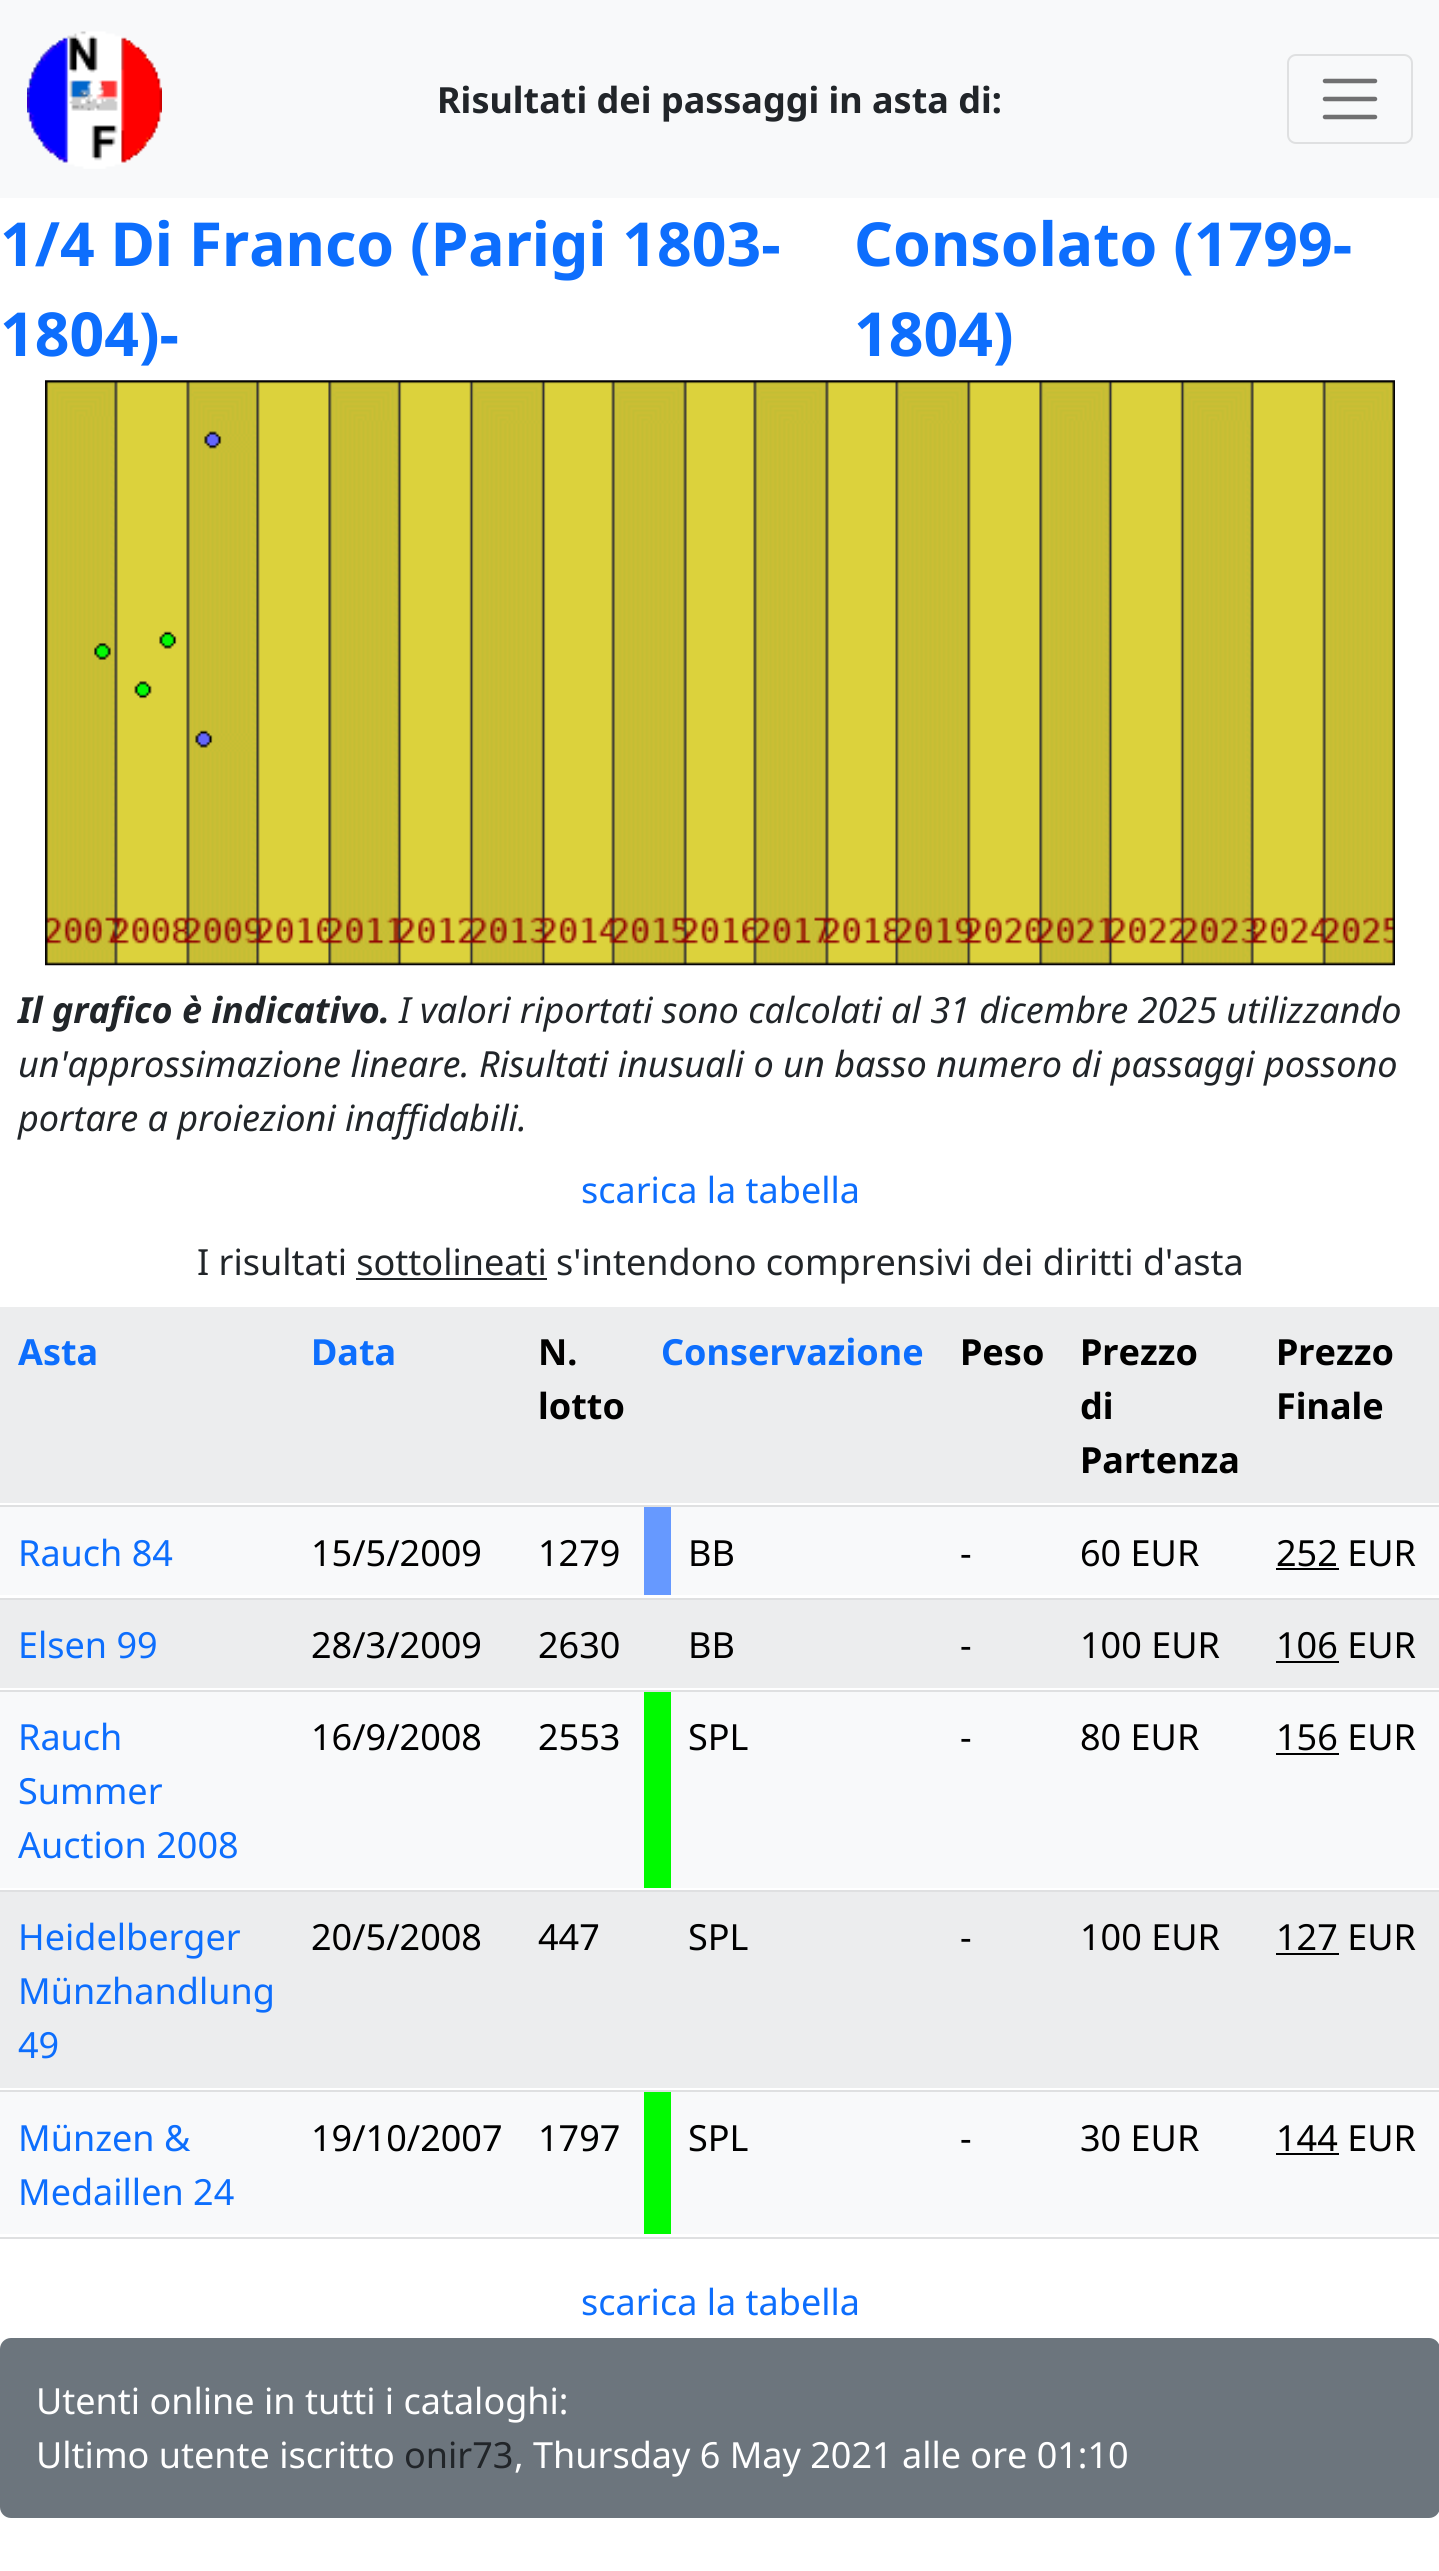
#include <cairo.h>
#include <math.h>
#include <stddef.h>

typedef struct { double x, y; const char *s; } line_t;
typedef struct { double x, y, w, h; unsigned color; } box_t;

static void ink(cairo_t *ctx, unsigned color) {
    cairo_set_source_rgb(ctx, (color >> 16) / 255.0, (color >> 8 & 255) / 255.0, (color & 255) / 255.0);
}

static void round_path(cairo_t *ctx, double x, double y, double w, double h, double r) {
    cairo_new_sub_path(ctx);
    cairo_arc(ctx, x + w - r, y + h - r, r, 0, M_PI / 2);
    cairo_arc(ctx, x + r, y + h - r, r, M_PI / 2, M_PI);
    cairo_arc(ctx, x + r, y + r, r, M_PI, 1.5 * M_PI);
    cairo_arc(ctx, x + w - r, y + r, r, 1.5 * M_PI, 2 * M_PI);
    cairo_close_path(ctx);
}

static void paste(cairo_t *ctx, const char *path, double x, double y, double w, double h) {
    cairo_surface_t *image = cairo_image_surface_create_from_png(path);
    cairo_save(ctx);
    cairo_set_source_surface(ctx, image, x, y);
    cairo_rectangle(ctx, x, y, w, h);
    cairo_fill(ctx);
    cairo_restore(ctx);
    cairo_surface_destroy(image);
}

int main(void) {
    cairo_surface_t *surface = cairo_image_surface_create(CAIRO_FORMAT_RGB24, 1439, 2571);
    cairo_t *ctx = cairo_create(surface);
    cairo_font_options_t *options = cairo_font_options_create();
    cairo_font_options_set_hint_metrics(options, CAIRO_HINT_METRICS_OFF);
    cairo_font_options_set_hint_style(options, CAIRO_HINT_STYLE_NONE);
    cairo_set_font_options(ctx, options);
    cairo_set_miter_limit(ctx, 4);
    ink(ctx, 0xFFFFFF);
    cairo_paint(ctx);
    ink(ctx, 0xF8F9FA);
    cairo_rectangle(ctx, 0, 0, 1439, 198);
    cairo_fill(ctx);
    paste(ctx, "media/1.png", 27, 31, 135, 138);
    cairo_select_font_face(ctx, "Noto Sans", CAIRO_FONT_SLANT_NORMAL, CAIRO_FONT_WEIGHT_BOLD);
    cairo_set_font_size(ctx, 36);
    ink(ctx, 0x212529);
    cairo_move_to(ctx, 437, 113);
    cairo_show_text(ctx, "Risultati dei passaggi in asta di:");
    round_path(ctx, 1288, 55, 124, 88, 8);
    ink(ctx, 0xDFE0E1);
    cairo_stroke(ctx);
    cairo_new_path(ctx);
    cairo_move_to(ctx, 1325, 81);
    cairo_line_to(ctx, 1375, 81);
    cairo_move_to(ctx, 1325, 99);
    cairo_line_to(ctx, 1375, 99);
    cairo_move_to(ctx, 1325, 117);
    cairo_line_to(ctx, 1375, 117);
    ink(ctx, 0x707071);
    cairo_set_line_width(ctx, 4.5);
    cairo_set_line_cap(ctx, CAIRO_LINE_CAP_ROUND);
    cairo_stroke(ctx);
    cairo_set_font_size(ctx, 60.7);
    ink(ctx, 0x0D6EFD);
    {
        static const line_t items[] = {
            {0, 266, "1/4 Di Franco (Parigi 1803-"},
            {0, 356, "1804)-"},
            {854, 266, "Consolato (1799-"},
            {854, 356, "1804)"},
        };
        for (size_t i = 0; i < sizeof items / sizeof *items; i++) {
            cairo_move_to(ctx, items[i].x, items[i].y);
            cairo_show_text(ctx, items[i].s);
        }
    }
    paste(ctx, "media/2.png", 45, 380, 1350, 586);
    cairo_select_font_face(ctx, "Noto Sans", CAIRO_FONT_SLANT_ITALIC, CAIRO_FONT_WEIGHT_BOLD);
    cairo_set_font_size(ctx, 36);
    ink(ctx, 0x212529);
    cairo_move_to(ctx, 18, 1023);
    cairo_show_text(ctx, "Il grafico è indicativo.");
    cairo_select_font_face(ctx, "Noto Sans", CAIRO_FONT_SLANT_ITALIC, CAIRO_FONT_WEIGHT_NORMAL);
    {
        static const line_t items[] = {
            {399, 1023, "I valori riportati sono calcolati al 31 dicembre 2025 utilizzando"},
            {18, 1077, "un'approssimazione lineare. Risultati inusuali o un basso numero di passaggi possono"},
            {18, 1131, "portare a proiezioni inaffidabili."},
        };
        for (size_t i = 0; i < sizeof items / sizeof *items; i++) {
            cairo_move_to(ctx, items[i].x, items[i].y);
            cairo_show_text(ctx, items[i].s);
        }
    }
    cairo_select_font_face(ctx, "Noto Sans", CAIRO_FONT_SLANT_NORMAL, CAIRO_FONT_WEIGHT_NORMAL);
    ink(ctx, 0x0D6EFD);
    cairo_move_to(ctx, 581, 1203);
    cairo_show_text(ctx, "scarica la tabella");
    ink(ctx, 0x212529);
    cairo_move_to(ctx, 197, 1275);
    cairo_show_text(ctx, "I risultati sottolineati s'intendono comprensivi dei diritti d'asta");
    cairo_rectangle(ctx, 356, 1278, 191, 2);
    cairo_fill(ctx);
    ink(ctx, 0xECEDEE);
    cairo_rectangle(ctx, 0, 1307, 1439, 196);
    cairo_fill(ctx);
    cairo_select_font_face(ctx, "Noto Sans", CAIRO_FONT_SLANT_NORMAL, CAIRO_FONT_WEIGHT_BOLD);
    ink(ctx, 0x0D6EFD);
    cairo_move_to(ctx, 18, 1365);
    cairo_show_text(ctx, "Asta");
    cairo_move_to(ctx, 311, 1365);
    cairo_show_text(ctx, "Data");
    ink(ctx, 0x000000);
    cairo_move_to(ctx, 538, 1365);
    cairo_show_text(ctx, "N.");
    cairo_move_to(ctx, 538, 1419);
    cairo_show_text(ctx, "lotto");
    ink(ctx, 0x0D6EFD);
    cairo_move_to(ctx, 661, 1365);
    cairo_show_text(ctx, "Conservazione");
    ink(ctx, 0x000000);
    {
        static const line_t items[] = {
            {960, 1365, "Peso"},
            {1080, 1365, "Prezzo"},
            {1080, 1419, "di"},
            {1080, 1473, "Partenza"},
            {1276, 1365, "Prezzo"},
            {1276, 1419, "Finale"},
        };
        for (size_t i = 0; i < sizeof items / sizeof *items; i++) {
            cairo_move_to(ctx, items[i].x, items[i].y);
            cairo_show_text(ctx, items[i].s);
        }
    }
    {
        static const box_t items[] = {
            {1433, 1505, 6, 90, 0xF8F9FA},
            {0, 1505, 1439, 2, 0xDFE0E1},
            {1433, 1598, 6, 90, 0xECEDEE},
            {0, 1598, 1439, 2, 0xDFE0E1},
            {0, 1507, 644, 88, 0xF8F9FA},
        };
        for (size_t i = 0; i < sizeof items / sizeof *items; i++) {
            ink(ctx, items[i].color);
            cairo_rectangle(ctx, items[i].x, items[i].y, items[i].w, items[i].h);
            cairo_fill(ctx);
        }
    }
    cairo_select_font_face(ctx, "Noto Sans", CAIRO_FONT_SLANT_NORMAL, CAIRO_FONT_WEIGHT_NORMAL);
    ink(ctx, 0x0D6EFD);
    cairo_move_to(ctx, 18, 1566);
    cairo_show_text(ctx, "Rauch 84");
    ink(ctx, 0x000000);
    cairo_move_to(ctx, 311, 1566);
    cairo_show_text(ctx, "15/5/2009");
    cairo_move_to(ctx, 538, 1566);
    cairo_show_text(ctx, "1279");
    ink(ctx, 0x6699FF);
    cairo_rectangle(ctx, 644, 1507, 27, 88);
    cairo_fill(ctx);
    ink(ctx, 0xF8F9FA);
    cairo_rectangle(ctx, 671, 1507, 762, 88);
    cairo_fill(ctx);
    ink(ctx, 0x000000);
    {
        static const line_t items[] = {
            {688, 1566, "BB"},
            {960, 1566, "-"},
            {1080, 1566, "60 EUR"},
            {1276, 1566, "252 EUR"},
        };
        for (size_t i = 0; i < sizeof items / sizeof *items; i++) {
            cairo_move_to(ctx, items[i].x, items[i].y);
            cairo_show_text(ctx, items[i].s);
        }
    }
    {
        static const box_t items[] = {
            {1276, 1568, 63, 2, 0x000000},
            {1433, 1690, 6, 198, 0xF8F9FA},
            {0, 1690, 1439, 2, 0xDFE0E1},
            {0, 1600, 1433, 88, 0xECEDEE},
        };
        for (size_t i = 0; i < sizeof items / sizeof *items; i++) {
            ink(ctx, items[i].color);
            cairo_rectangle(ctx, items[i].x, items[i].y, items[i].w, items[i].h);
            cairo_fill(ctx);
        }
    }
    ink(ctx, 0x0D6EFD);
    cairo_move_to(ctx, 18, 1658);
    cairo_show_text(ctx, "Elsen 99");
    ink(ctx, 0x000000);
    {
        static const line_t items[] = {
            {311, 1658, "28/3/2009"},
            {538, 1658, "2630"},
            {688, 1658, "BB"},
            {960, 1658, "-"},
            {1080, 1658, "100 EUR"},
            {1276, 1658, "106 EUR"},
        };
        for (size_t i = 0; i < sizeof items / sizeof *items; i++) {
            cairo_move_to(ctx, items[i].x, items[i].y);
            cairo_show_text(ctx, items[i].s);
        }
    }
    {
        static const box_t items[] = {
            {1276, 1661, 63, 2, 0x000000},
            {1433, 1890, 6, 198, 0xECEDEE},
            {0, 1890, 1439, 2, 0xDFE0E1},
            {0, 1692, 644, 196, 0xF8F9FA},
        };
        for (size_t i = 0; i < sizeof items / sizeof *items; i++) {
            ink(ctx, items[i].color);
            cairo_rectangle(ctx, items[i].x, items[i].y, items[i].w, items[i].h);
            cairo_fill(ctx);
        }
    }
    ink(ctx, 0x0D6EFD);
    {
        static const line_t items[] = {
            {18, 1750, "Rauch"},
            {18, 1804, "Summer"},
            {18, 1858, "Auction 2008"},
        };
        for (size_t i = 0; i < sizeof items / sizeof *items; i++) {
            cairo_move_to(ctx, items[i].x, items[i].y);
            cairo_show_text(ctx, items[i].s);
        }
    }
    ink(ctx, 0x000000);
    cairo_move_to(ctx, 311, 1750);
    cairo_show_text(ctx, "16/9/2008");
    cairo_move_to(ctx, 538, 1750);
    cairo_show_text(ctx, "2553");
    ink(ctx, 0x00FA00);
    cairo_rectangle(ctx, 644, 1692, 27, 196);
    cairo_fill(ctx);
    ink(ctx, 0xF8F9FA);
    cairo_rectangle(ctx, 671, 1692, 762, 196);
    cairo_fill(ctx);
    ink(ctx, 0x000000);
    {
        static const line_t items[] = {
            {688, 1750, "SPL"},
            {960, 1750, "-"},
            {1080, 1750, "80 EUR"},
            {1276, 1750, "156 EUR"},
        };
        for (size_t i = 0; i < sizeof items / sizeof *items; i++) {
            cairo_move_to(ctx, items[i].x, items[i].y);
            cairo_show_text(ctx, items[i].s);
        }
    }
    {
        static const box_t items[] = {
            {1276, 1753, 63, 2, 0x000000},
            {1433, 2090, 6, 144, 0xF8F9FA},
            {0, 2090, 1439, 2, 0xDFE0E1},
            {0, 1892, 1433, 196, 0xECEDEE},
        };
        for (size_t i = 0; i < sizeof items / sizeof *items; i++) {
            ink(ctx, items[i].color);
            cairo_rectangle(ctx, items[i].x, items[i].y, items[i].w, items[i].h);
            cairo_fill(ctx);
        }
    }
    ink(ctx, 0x0D6EFD);
    {
        static const line_t items[] = {
            {18, 1950, "Heidelberger"},
            {18, 2004, "Münzhandlung"},
            {18, 2058, "49"},
        };
        for (size_t i = 0; i < sizeof items / sizeof *items; i++) {
            cairo_move_to(ctx, items[i].x, items[i].y);
            cairo_show_text(ctx, items[i].s);
        }
    }
    ink(ctx, 0x000000);
    {
        static const line_t items[] = {
            {311, 1950, "20/5/2008"},
            {538, 1950, "447"},
            {688, 1950, "SPL"},
            {960, 1950, "-"},
            {1080, 1950, "100 EUR"},
            {1276, 1950, "127 EUR"},
        };
        for (size_t i = 0; i < sizeof items / sizeof *items; i++) {
            cairo_move_to(ctx, items[i].x, items[i].y);
            cairo_show_text(ctx, items[i].s);
        }
    }
    {
        static const box_t items[] = {
            {1276, 1953, 63, 2, 0x000000},
            {0, 2237, 1439, 2, 0xDFE0E1},
            {0, 2092, 644, 142, 0xF8F9FA},
        };
        for (size_t i = 0; i < sizeof items / sizeof *items; i++) {
            ink(ctx, items[i].color);
            cairo_rectangle(ctx, items[i].x, items[i].y, items[i].w, items[i].h);
            cairo_fill(ctx);
        }
    }
    ink(ctx, 0x0D6EFD);
    cairo_move_to(ctx, 18, 2151);
    cairo_show_text(ctx, "Münzen &");
    cairo_move_to(ctx, 18, 2205);
    cairo_show_text(ctx, "Medaillen 24");
    ink(ctx, 0x000000);
    cairo_move_to(ctx, 311, 2151);
    cairo_show_text(ctx, "19/10/2007");
    cairo_move_to(ctx, 538, 2151);
    cairo_show_text(ctx, "1797");
    ink(ctx, 0x00FA00);
    cairo_rectangle(ctx, 644, 2092, 27, 142);
    cairo_fill(ctx);
    ink(ctx, 0xF8F9FA);
    cairo_rectangle(ctx, 671, 2092, 762, 142);
    cairo_fill(ctx);
    ink(ctx, 0x000000);
    {
        static const line_t items[] = {
            {688, 2151, "SPL"},
            {960, 2151, "-"},
            {1080, 2151, "30 EUR"},
            {1276, 2151, "144 EUR"},
        };
        for (size_t i = 0; i < sizeof items / sizeof *items; i++) {
            cairo_move_to(ctx, items[i].x, items[i].y);
            cairo_show_text(ctx, items[i].s);
        }
    }
    cairo_rectangle(ctx, 1276, 2153, 63, 2);
    cairo_fill(ctx);
    ink(ctx, 0x0D6EFD);
    cairo_move_to(ctx, 581, 2315);
    cairo_show_text(ctx, "scarica la tabella");
    ink(ctx, 0x6C757D);
    round_path(ctx, 0, 2338, 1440, 180, 11);
    cairo_fill(ctx);
    ink(ctx, 0xFFFFFF);
    cairo_move_to(ctx, 36, 2414);
    cairo_show_text(ctx, "Utenti online in tutti i cataloghi:");
    cairo_move_to(ctx, 36, 2468);
    cairo_show_text(ctx, "Ultimo utente iscritto");
    ink(ctx, 0x212529);
    cairo_move_to(ctx, 404, 2468);
    cairo_show_text(ctx, "onir73");
    ink(ctx, 0xFFFFFF);
    cairo_move_to(ctx, 514, 2468);
    cairo_show_text(ctx, ", Thursday 6 May 2021 alle ore 01:10");
    cairo_surface_write_to_png(surface, "image.png");
    cairo_font_options_destroy(options);
    cairo_destroy(ctx);
    cairo_surface_destroy(surface);
    return 0;
}
